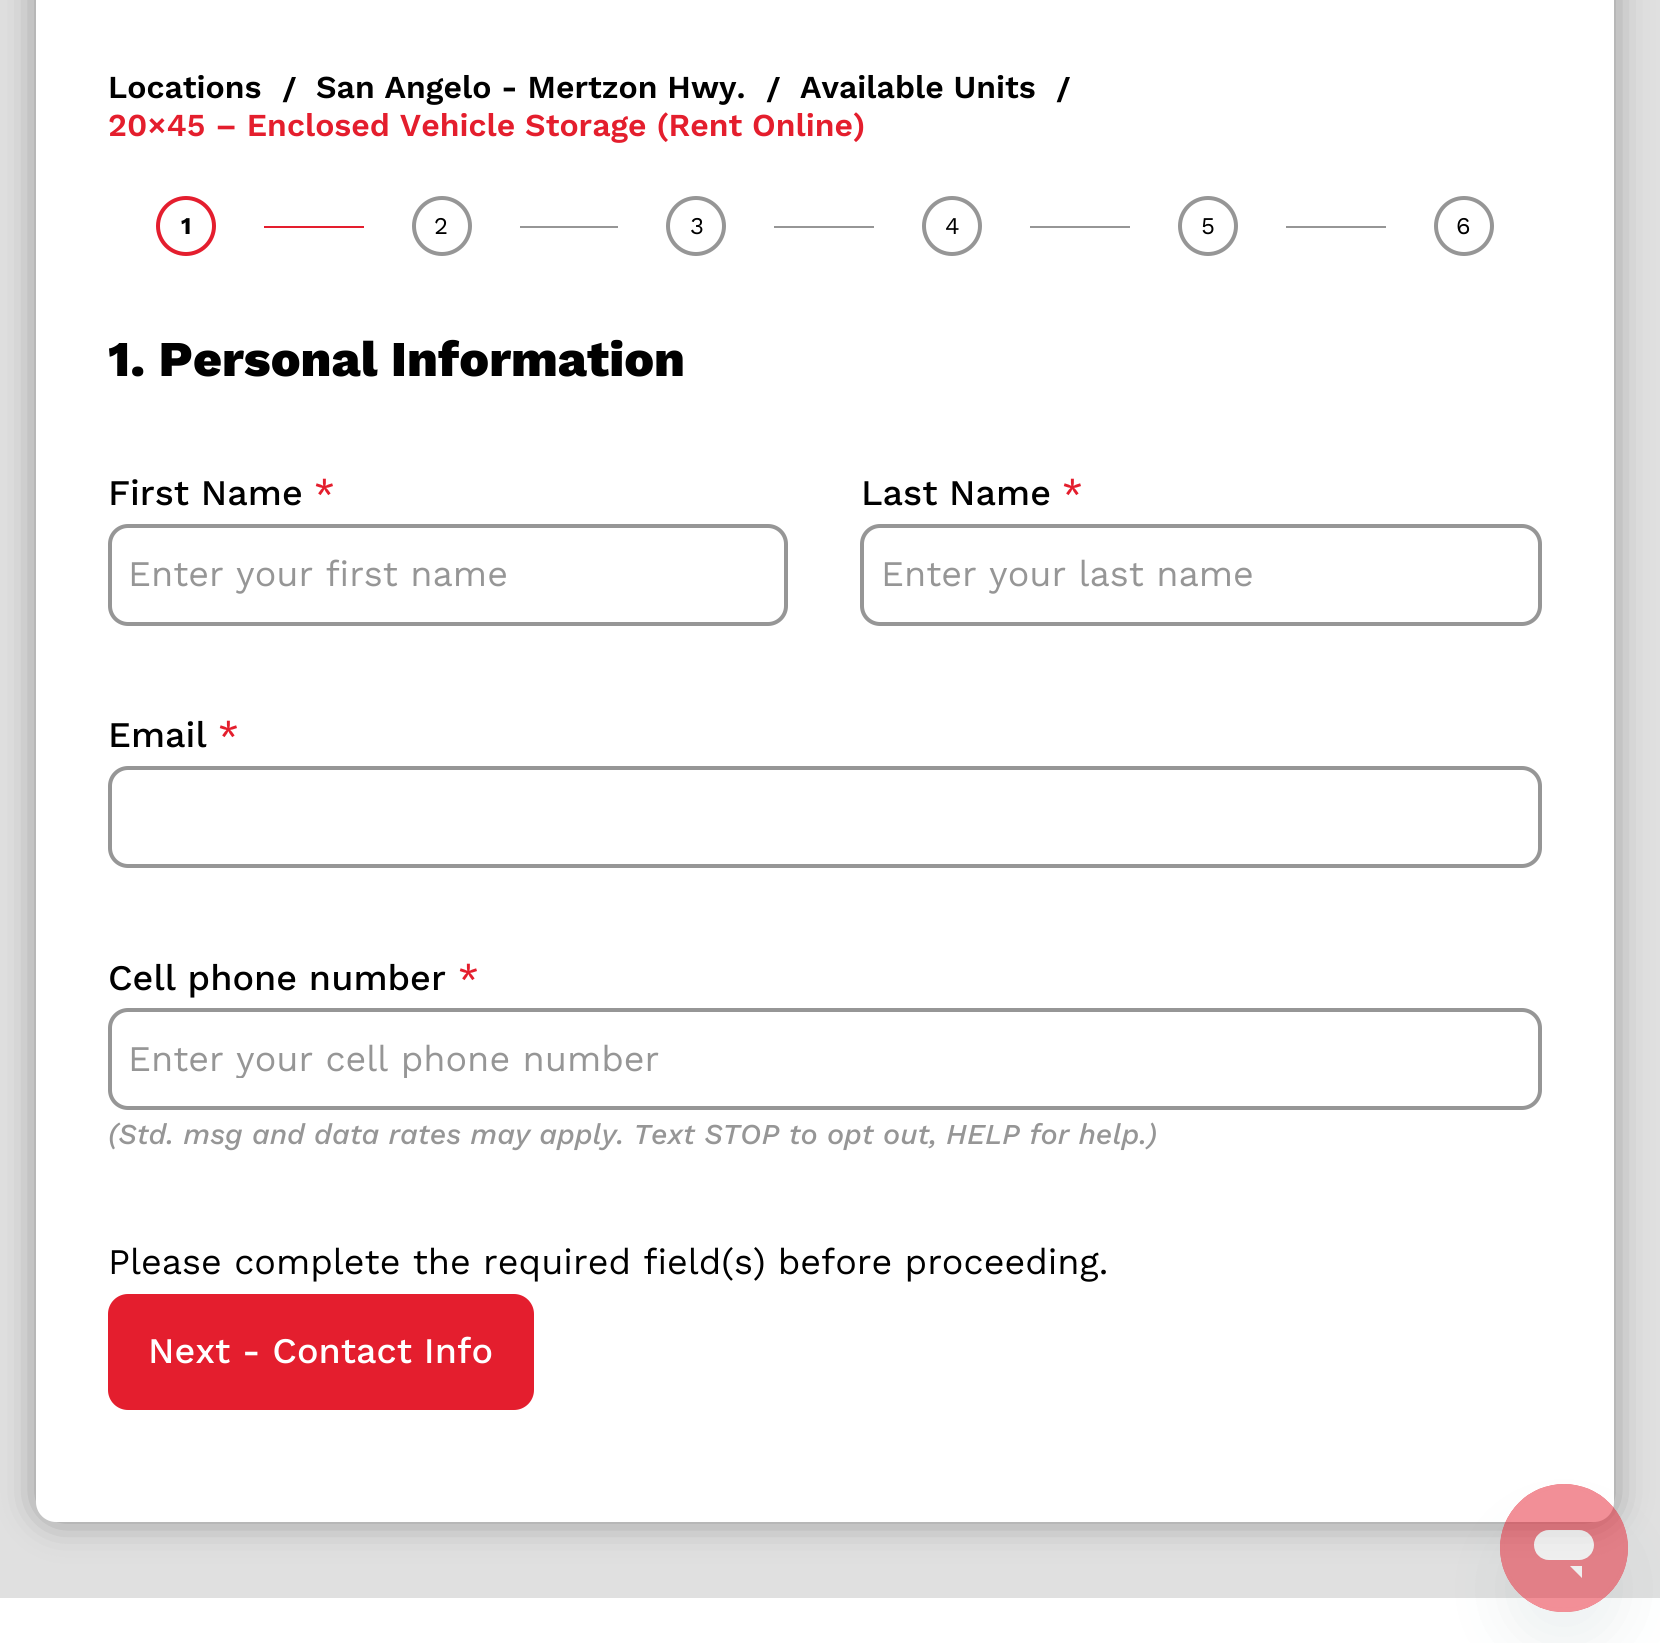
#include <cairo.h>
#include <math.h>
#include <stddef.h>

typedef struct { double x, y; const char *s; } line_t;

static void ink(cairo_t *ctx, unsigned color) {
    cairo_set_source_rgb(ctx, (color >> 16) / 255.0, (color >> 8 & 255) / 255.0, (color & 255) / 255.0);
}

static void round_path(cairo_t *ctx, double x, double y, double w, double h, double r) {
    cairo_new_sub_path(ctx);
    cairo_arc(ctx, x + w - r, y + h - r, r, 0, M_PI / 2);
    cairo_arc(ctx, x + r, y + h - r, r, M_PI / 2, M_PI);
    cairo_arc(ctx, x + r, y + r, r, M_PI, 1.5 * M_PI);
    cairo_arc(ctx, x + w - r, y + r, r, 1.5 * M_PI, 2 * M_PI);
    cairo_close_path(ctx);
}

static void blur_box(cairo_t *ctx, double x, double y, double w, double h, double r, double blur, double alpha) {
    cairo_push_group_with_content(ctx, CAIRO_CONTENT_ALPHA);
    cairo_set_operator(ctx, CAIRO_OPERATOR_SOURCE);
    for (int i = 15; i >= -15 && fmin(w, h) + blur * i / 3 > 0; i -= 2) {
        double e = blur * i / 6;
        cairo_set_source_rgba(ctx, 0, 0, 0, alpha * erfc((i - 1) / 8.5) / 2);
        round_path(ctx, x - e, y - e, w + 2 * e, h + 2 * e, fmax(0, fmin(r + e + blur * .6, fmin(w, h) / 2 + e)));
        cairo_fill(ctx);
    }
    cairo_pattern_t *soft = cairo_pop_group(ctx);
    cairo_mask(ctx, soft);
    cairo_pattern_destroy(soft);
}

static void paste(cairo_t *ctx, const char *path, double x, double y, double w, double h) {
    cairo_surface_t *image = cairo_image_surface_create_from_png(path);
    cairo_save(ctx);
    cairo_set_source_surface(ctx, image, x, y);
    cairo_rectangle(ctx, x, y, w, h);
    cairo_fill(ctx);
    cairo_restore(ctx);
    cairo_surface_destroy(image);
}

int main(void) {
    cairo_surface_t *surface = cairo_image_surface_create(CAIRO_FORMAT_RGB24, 1660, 1643);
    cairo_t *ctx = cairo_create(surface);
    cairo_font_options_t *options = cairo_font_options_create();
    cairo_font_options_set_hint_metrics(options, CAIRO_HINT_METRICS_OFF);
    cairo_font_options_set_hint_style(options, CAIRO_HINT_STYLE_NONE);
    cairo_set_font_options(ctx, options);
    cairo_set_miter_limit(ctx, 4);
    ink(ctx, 0xE0E0E0);
    cairo_paint(ctx);
    ink(ctx, 0x000000);
    blur_box(ctx, 44, -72, 1562, 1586, 12, 20, 0.5);
    ink(ctx, 0xFFFFFF);
    round_path(ctx, 36, -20, 1578, 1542, 20);
    cairo_fill(ctx);
    cairo_select_font_face(ctx, "Work Sans SemiBold", CAIRO_FONT_SLANT_NORMAL, CAIRO_FONT_WEIGHT_NORMAL);
    cairo_set_font_size(ctx, 32);
    ink(ctx, 0x000000);
    {
        static const line_t items[] = {
            {108, 98, "Locations"},
            {282, 100, "/"},
            {316, 98, "San Angelo - Mertzon Hwy."},
            {766, 100, "/"},
            {800, 98, "Available Units"},
            {1056, 100, "/"},
        };
        for (size_t i = 0; i < sizeof items / sizeof *items; i++) {
            cairo_move_to(ctx, items[i].x, items[i].y);
            cairo_show_text(ctx, items[i].s);
        }
    }
    ink(ctx, 0xE41E2D);
    cairo_move_to(ctx, 108, 136);
    cairo_show_text(ctx, "20×45 – Enclosed Vehicle Storage (Rent Online)");
    cairo_new_path(ctx);
    cairo_arc(ctx, 186, 226, 28, 0, 2 * M_PI);
    ink(ctx, 0xE41E2E);
    cairo_set_line_width(ctx, 4);
    cairo_stroke(ctx);
    cairo_select_font_face(ctx, "Work Sans", CAIRO_FONT_SLANT_NORMAL, CAIRO_FONT_WEIGHT_BOLD);
    cairo_set_font_size(ctx, 24);
    ink(ctx, 0x000000);
    cairo_move_to(ctx, 181, 234);
    cairo_show_text(ctx, "1");
    ink(ctx, 0xE41E2E);
    cairo_rectangle(ctx, 264, 226, 100, 2);
    cairo_fill(ctx);
    cairo_arc(ctx, 442, 226, 28, 0, 2 * M_PI);
    ink(ctx, 0x969696);
    cairo_stroke(ctx);
    cairo_select_font_face(ctx, "Work Sans", CAIRO_FONT_SLANT_NORMAL, CAIRO_FONT_WEIGHT_NORMAL);
    ink(ctx, 0x000000);
    cairo_move_to(ctx, 434, 234);
    cairo_show_text(ctx, "2");
    ink(ctx, 0x969696);
    cairo_rectangle(ctx, 520, 226, 98, 2);
    cairo_fill(ctx);
    cairo_arc(ctx, 696, 226, 28, 0, 2 * M_PI);
    cairo_stroke(ctx);
    ink(ctx, 0x000000);
    cairo_move_to(ctx, 690, 234);
    cairo_show_text(ctx, "3");
    ink(ctx, 0x969696);
    cairo_rectangle(ctx, 774, 226, 100, 2);
    cairo_fill(ctx);
    cairo_arc(ctx, 952, 226, 28, 0, 2 * M_PI);
    cairo_stroke(ctx);
    ink(ctx, 0x000000);
    cairo_move_to(ctx, 945, 234);
    cairo_show_text(ctx, "4");
    ink(ctx, 0x969696);
    cairo_rectangle(ctx, 1030, 226, 100, 2);
    cairo_fill(ctx);
    cairo_arc(ctx, 1208, 226, 28, 0, 2 * M_PI);
    cairo_stroke(ctx);
    ink(ctx, 0x000000);
    cairo_move_to(ctx, 1201, 234);
    cairo_show_text(ctx, "5");
    ink(ctx, 0x969696);
    cairo_rectangle(ctx, 1286, 226, 100, 2);
    cairo_fill(ctx);
    cairo_arc(ctx, 1464, 226, 28, 0, 2 * M_PI);
    cairo_stroke(ctx);
    ink(ctx, 0x000000);
    cairo_move_to(ctx, 1456, 234);
    cairo_show_text(ctx, "6");
    cairo_select_font_face(ctx, "Work Sans ExtraBold", CAIRO_FONT_SLANT_NORMAL, CAIRO_FONT_WEIGHT_NORMAL);
    cairo_set_font_size(ctx, 50);
    cairo_move_to(ctx, 108, 376);
    cairo_show_text(ctx, "1. Personal Information");
    cairo_select_font_face(ctx, "Work Sans Medium", CAIRO_FONT_SLANT_NORMAL, CAIRO_FONT_WEIGHT_NORMAL);
    cairo_set_font_size(ctx, 36);
    cairo_move_to(ctx, 108, 505);
    cairo_show_text(ctx, "First Name");
    ink(ctx, 0xE41E2D);
    cairo_move_to(ctx, 314, 505);
    cairo_show_text(ctx, "*");
    round_path(ctx, 110, 526, 676, 98, 18);
    ink(ctx, 0x969696);
    cairo_stroke(ctx);
    cairo_select_font_face(ctx, "Work Sans", CAIRO_FONT_SLANT_NORMAL, CAIRO_FONT_WEIGHT_NORMAL);
    cairo_move_to(ctx, 128, 586);
    cairo_show_text(ctx, "Enter your first name");
    cairo_select_font_face(ctx, "Work Sans Medium", CAIRO_FONT_SLANT_NORMAL, CAIRO_FONT_WEIGHT_NORMAL);
    ink(ctx, 0x000000);
    cairo_move_to(ctx, 861, 505);
    cairo_show_text(ctx, "Last Name");
    ink(ctx, 0xE41E2D);
    cairo_move_to(ctx, 1062, 505);
    cairo_show_text(ctx, "*");
    round_path(ctx, 862, 526, 678, 98, 18);
    ink(ctx, 0x969696);
    cairo_stroke(ctx);
    cairo_select_font_face(ctx, "Work Sans", CAIRO_FONT_SLANT_NORMAL, CAIRO_FONT_WEIGHT_NORMAL);
    cairo_move_to(ctx, 881, 586);
    cairo_show_text(ctx, "Enter your last name");
    cairo_select_font_face(ctx, "Work Sans Medium", CAIRO_FONT_SLANT_NORMAL, CAIRO_FONT_WEIGHT_NORMAL);
    ink(ctx, 0x000000);
    cairo_move_to(ctx, 108, 747);
    cairo_show_text(ctx, "Email");
    ink(ctx, 0xE41E2D);
    cairo_move_to(ctx, 218, 747);
    cairo_show_text(ctx, "*");
    round_path(ctx, 110, 768, 1430, 98, 18);
    ink(ctx, 0x969696);
    cairo_stroke(ctx);
    ink(ctx, 0x000000);
    cairo_move_to(ctx, 108, 990);
    cairo_show_text(ctx, "Cell phone number");
    ink(ctx, 0xE41E2D);
    cairo_move_to(ctx, 458, 990);
    cairo_show_text(ctx, "*");
    round_path(ctx, 110, 1010, 1430, 98, 18);
    ink(ctx, 0x969696);
    cairo_stroke(ctx);
    cairo_save(ctx);
    cairo_rectangle(ctx, 128, 1036, 1394, 42);
    cairo_clip(ctx);
    cairo_select_font_face(ctx, "Work Sans", CAIRO_FONT_SLANT_NORMAL, CAIRO_FONT_WEIGHT_NORMAL);
    cairo_move_to(ctx, 128, 1071);
    cairo_show_text(ctx, "Enter your cell phone number");
    cairo_restore(ctx);
    cairo_select_font_face(ctx, "Work Sans Medium", CAIRO_FONT_SLANT_ITALIC, CAIRO_FONT_WEIGHT_NORMAL);
    cairo_set_font_size(ctx, 28.8);
    cairo_move_to(ctx, 108, 1144);
    cairo_show_text(ctx, "(Std. msg and data rates may apply. Text STOP to opt out, HELP for help.)");
    cairo_select_font_face(ctx, "Work Sans", CAIRO_FONT_SLANT_NORMAL, CAIRO_FONT_WEIGHT_NORMAL);
    cairo_set_font_size(ctx, 36);
    ink(ctx, 0x000000);
    cairo_move_to(ctx, 108, 1274);
    cairo_show_text(ctx, "Please complete the required field(s) before proceeding.");
    ink(ctx, 0xE41E2E);
    round_path(ctx, 108, 1294, 426, 116, 20);
    cairo_fill(ctx);
    cairo_select_font_face(ctx, "Work Sans Medium", CAIRO_FONT_SLANT_NORMAL, CAIRO_FONT_WEIGHT_NORMAL);
    ink(ctx, 0xFFFFFF);
    cairo_move_to(ctx, 148, 1363);
    cairo_show_text(ctx, "Next - Contact Info");
    cairo_rectangle(ctx, 0, 1598, 1660, 45);
    cairo_fill(ctx);
    cairo_save(ctx);
    cairo_set_fill_rule(ctx, CAIRO_FILL_RULE_EVEN_ODD);
    cairo_new_path(ctx);
    cairo_move_to(ctx, 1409, 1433);
    cairo_line_to(ctx, 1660, 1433);
    cairo_line_to(ctx, 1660, 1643);
    cairo_line_to(ctx, 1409, 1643);
    cairo_close_path(ctx);
    cairo_move_to(ctx, 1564, 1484);
    cairo_curve_to(ctx, 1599.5, 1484, 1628, 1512.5, 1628, 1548);
    cairo_curve_to(ctx, 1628, 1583.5, 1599.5, 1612, 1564, 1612);
    cairo_curve_to(ctx, 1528.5, 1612, 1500, 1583.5, 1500, 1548);
    cairo_curve_to(ctx, 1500, 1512.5, 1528.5, 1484, 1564, 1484);
    cairo_close_path(ctx);
    cairo_clip(ctx);
    ink(ctx, 0x17494D);
    blur_box(ctx, 1500, 1524, 128, 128, 64, 30, 0.07);
    cairo_restore(ctx);
    paste(ctx, "media/1.png", 1500, 1484, 128, 128);
    cairo_surface_write_to_png(surface, "image.png");
    cairo_font_options_destroy(options);
    cairo_destroy(ctx);
    cairo_surface_destroy(surface);
    return 0;
}
